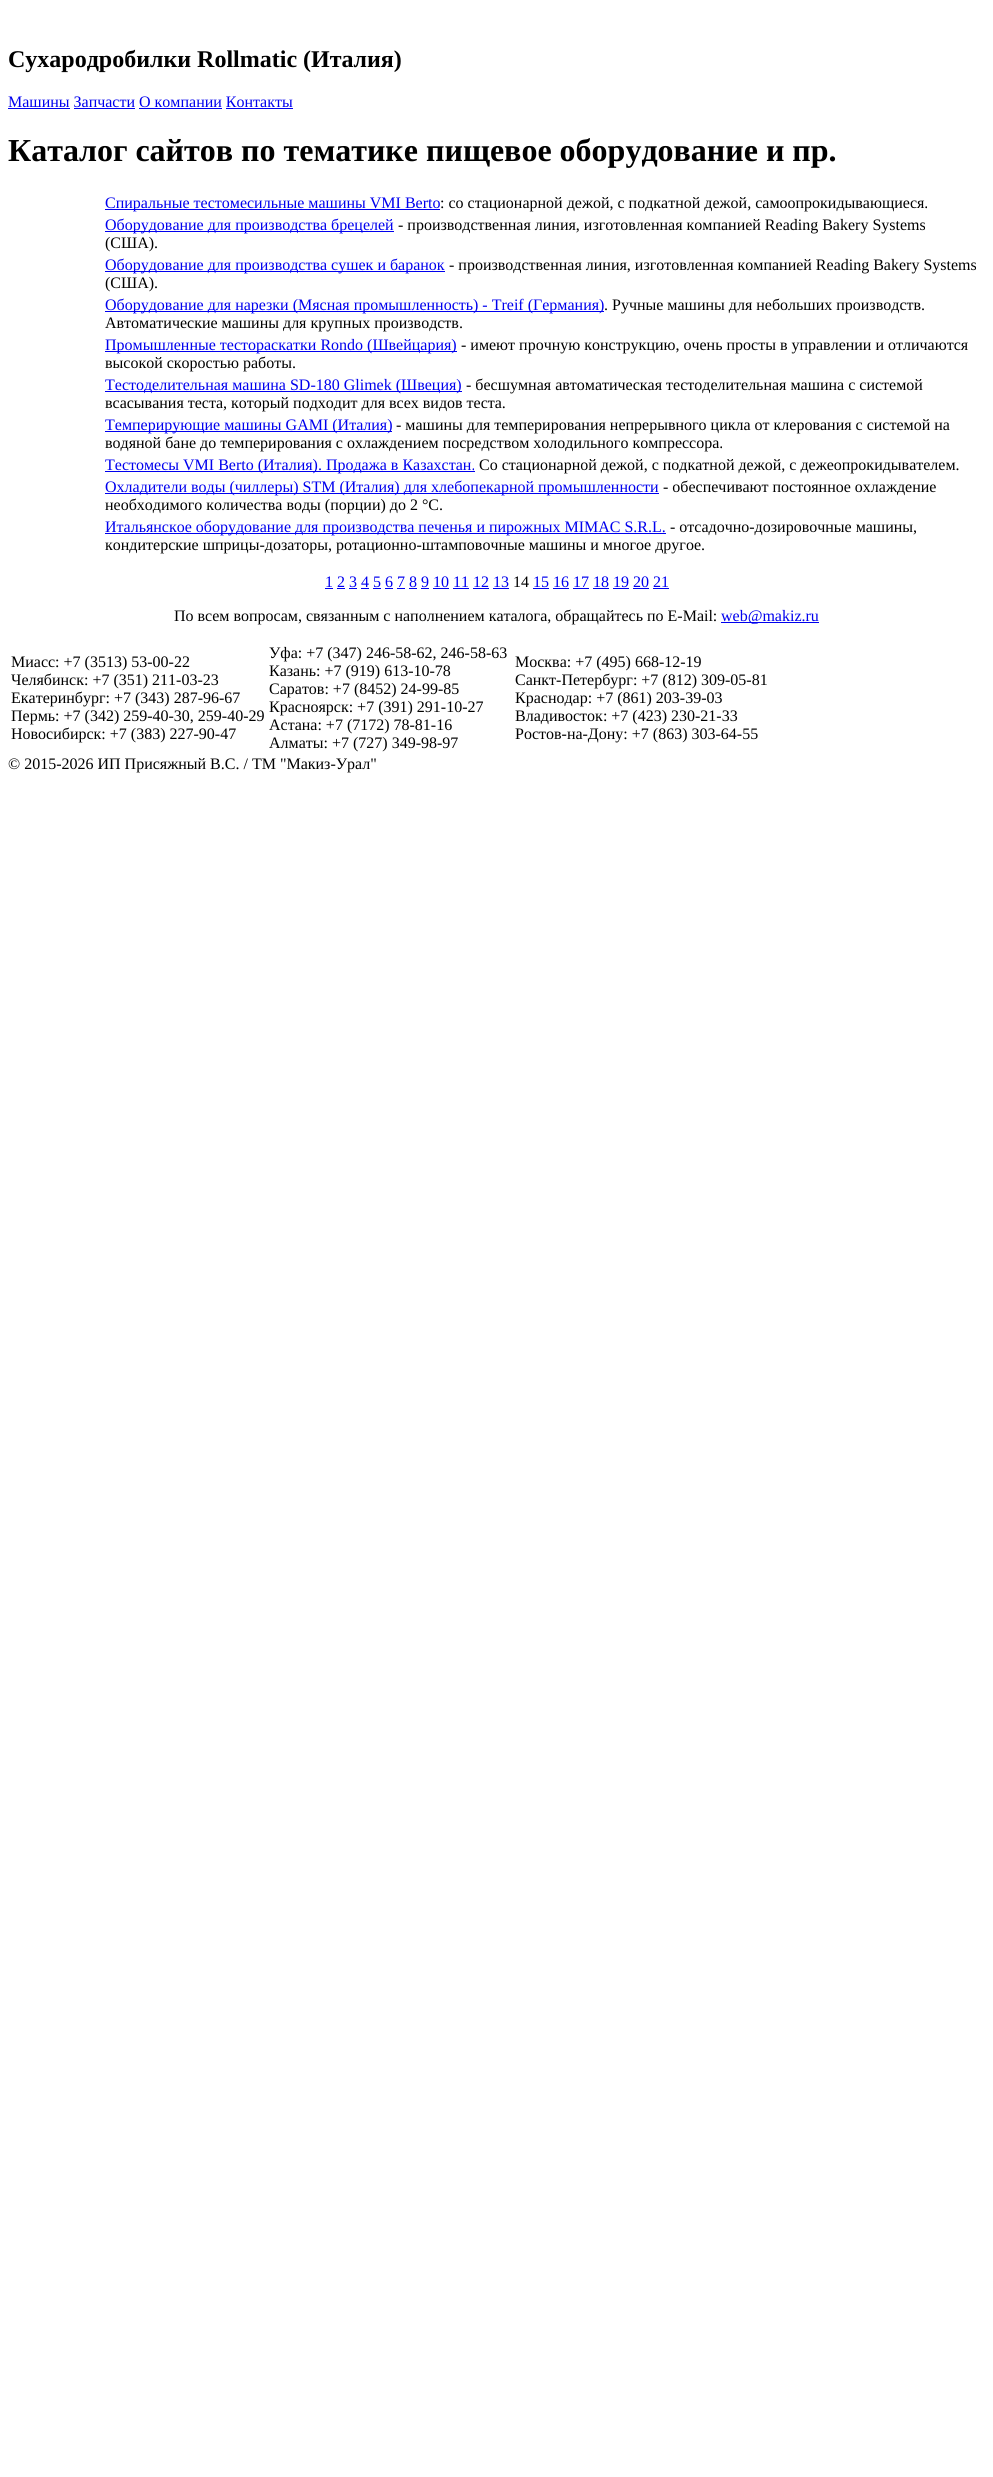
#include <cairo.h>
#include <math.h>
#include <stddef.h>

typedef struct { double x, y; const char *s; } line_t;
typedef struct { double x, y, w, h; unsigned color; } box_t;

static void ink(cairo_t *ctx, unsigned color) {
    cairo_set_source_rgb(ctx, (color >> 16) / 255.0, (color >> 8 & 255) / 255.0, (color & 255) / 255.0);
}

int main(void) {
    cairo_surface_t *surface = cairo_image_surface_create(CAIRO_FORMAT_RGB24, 993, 2477);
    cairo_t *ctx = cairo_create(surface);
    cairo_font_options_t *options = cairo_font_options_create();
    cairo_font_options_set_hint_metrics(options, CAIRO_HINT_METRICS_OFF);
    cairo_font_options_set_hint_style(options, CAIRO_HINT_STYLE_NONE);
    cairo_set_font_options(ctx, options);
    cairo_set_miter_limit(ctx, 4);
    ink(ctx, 0xFFFFFF);
    cairo_paint(ctx);
    cairo_select_font_face(ctx, "Liberation Serif", CAIRO_FONT_SLANT_NORMAL, CAIRO_FONT_WEIGHT_BOLD);
    cairo_set_font_size(ctx, 24);
    ink(ctx, 0x000000);
    cairo_move_to(ctx, 8, 67);
    cairo_show_text(ctx, "Сухародробилки Rollmatic (Италия)");
    cairo_select_font_face(ctx, "Liberation Serif", CAIRO_FONT_SLANT_NORMAL, CAIRO_FONT_WEIGHT_NORMAL);
    cairo_set_font_size(ctx, 16);
    ink(ctx, 0x0000EE);
    cairo_move_to(ctx, 8, 107);
    cairo_show_text(ctx, "Машины Запчасти О компании Контакты");
    {
        static const box_t items[] = {
            {8, 108, 62, 1, 0x0000EE},
            {74, 108, 61, 1, 0x0000EE},
            {139, 108, 83, 1, 0x0000EE},
            {226, 108, 67, 1, 0x0000EE},
        };
        for (size_t i = 0; i < sizeof items / sizeof *items; i++) {
            ink(ctx, items[i].color);
            cairo_rectangle(ctx, items[i].x, items[i].y, items[i].w, items[i].h);
            cairo_fill(ctx);
        }
    }
    cairo_select_font_face(ctx, "Liberation Serif", CAIRO_FONT_SLANT_NORMAL, CAIRO_FONT_WEIGHT_BOLD);
    cairo_set_font_size(ctx, 32);
    ink(ctx, 0x000000);
    cairo_move_to(ctx, 8, 161);
    cairo_show_text(ctx, "Каталог сайтов по тематике пищевое оборудование и пр.");
    ink(ctx, 0x0000EE);
    cairo_rectangle(ctx, 105, 209, 335, 1);
    cairo_fill(ctx);
    cairo_select_font_face(ctx, "Liberation Serif", CAIRO_FONT_SLANT_NORMAL, CAIRO_FONT_WEIGHT_NORMAL);
    cairo_set_font_size(ctx, 16);
    cairo_move_to(ctx, 105, 208);
    cairo_show_text(ctx, "Спиральные тестомесильные машины VMI Berto");
    ink(ctx, 0x000000);
    cairo_move_to(ctx, 440, 208);
    cairo_show_text(ctx, ": со стационарной дежой, с подкатной дежой, самоопрокидывающиеся.");
    ink(ctx, 0x0000EE);
    cairo_rectangle(ctx, 105, 231, 289, 1);
    cairo_fill(ctx);
    cairo_move_to(ctx, 105, 230);
    cairo_show_text(ctx, "Оборудование для производства брецелей");
    ink(ctx, 0x000000);
    cairo_move_to(ctx, 398, 230);
    cairo_show_text(ctx, "- производственная линия, изготовленная компанией Reading Bakery Systems");
    cairo_move_to(ctx, 105, 248);
    cairo_show_text(ctx, "(США).");
    ink(ctx, 0x0000EE);
    cairo_rectangle(ctx, 105, 271, 340, 1);
    cairo_fill(ctx);
    cairo_move_to(ctx, 105, 270);
    cairo_show_text(ctx, "Оборудование для производства сушек и баранок");
    ink(ctx, 0x000000);
    cairo_move_to(ctx, 449, 270);
    cairo_show_text(ctx, "- производственная линия, изготовленная компанией Reading Bakery Systems");
    cairo_move_to(ctx, 105, 288);
    cairo_show_text(ctx, "(США).");
    ink(ctx, 0x0000EE);
    cairo_rectangle(ctx, 105, 311, 499, 1);
    cairo_fill(ctx);
    cairo_move_to(ctx, 105, 310);
    cairo_show_text(ctx, "Оборудование для нарезки (Мясная промышленность) - Treif (Германия)");
    ink(ctx, 0x000000);
    cairo_move_to(ctx, 604, 310);
    cairo_show_text(ctx, ". Ручные машины для небольших производств.");
    cairo_move_to(ctx, 105, 328);
    cairo_show_text(ctx, "Автоматические машины для крупных производств.");
    ink(ctx, 0x0000EE);
    cairo_rectangle(ctx, 105, 351, 352, 1);
    cairo_fill(ctx);
    cairo_move_to(ctx, 105, 350);
    cairo_show_text(ctx, "Промышленные тестораскатки Rondo (Швейцария)");
    ink(ctx, 0x000000);
    cairo_move_to(ctx, 461, 350);
    cairo_show_text(ctx, "- имеют прочную конструкцию, очень просты в управлении и отличаются");
    cairo_move_to(ctx, 105, 368);
    cairo_show_text(ctx, "высокой скоростью работы.");
    ink(ctx, 0x0000EE);
    cairo_rectangle(ctx, 105, 391, 357, 1);
    cairo_fill(ctx);
    cairo_move_to(ctx, 105, 390);
    cairo_show_text(ctx, "Тестоделительная машина SD-180 Glimek (Швеция)");
    ink(ctx, 0x000000);
    cairo_move_to(ctx, 466, 390);
    cairo_show_text(ctx, "- бесшумная автоматическая тестоделительная машина с системой");
    cairo_move_to(ctx, 105, 408);
    cairo_show_text(ctx, "всасывания теста, который подходит для всех видов теста.");
    ink(ctx, 0x0000EE);
    cairo_rectangle(ctx, 105, 431, 287, 1);
    cairo_fill(ctx);
    cairo_move_to(ctx, 105, 430);
    cairo_show_text(ctx, "Темперирующие машины GAMI (Италия)");
    ink(ctx, 0x000000);
    cairo_move_to(ctx, 396, 430);
    cairo_show_text(ctx, "- машины для темперирования непрерывного цикла от клерования с системой на");
    cairo_move_to(ctx, 105, 448);
    cairo_show_text(ctx, "водяной бане до темперирования с охлаждением посредством холодильного компрессора.");
    ink(ctx, 0x0000EE);
    cairo_rectangle(ctx, 105, 471, 370, 1);
    cairo_fill(ctx);
    cairo_move_to(ctx, 105, 470);
    cairo_show_text(ctx, "Тестомесы VMI Berto (Италия). Продажа в Казахстан.");
    ink(ctx, 0x000000);
    cairo_move_to(ctx, 479, 470);
    cairo_show_text(ctx, "Со стационарной дежой, с подкатной дежой, с дежеопрокидывателем.");
    ink(ctx, 0x0000EE);
    cairo_rectangle(ctx, 105, 493, 554, 1);
    cairo_fill(ctx);
    cairo_move_to(ctx, 105, 492);
    cairo_show_text(ctx, "Охладители воды (чиллеры) STM (Италия) для хлебопекарной промышленности");
    ink(ctx, 0x000000);
    cairo_move_to(ctx, 663, 492);
    cairo_show_text(ctx, "- обеспечивают постоянное охлаждение");
    cairo_move_to(ctx, 105, 510);
    cairo_show_text(ctx, "необходимого количества воды (порции) до 2 °C.");
    ink(ctx, 0x0000EE);
    cairo_rectangle(ctx, 105, 533, 561, 1);
    cairo_fill(ctx);
    cairo_move_to(ctx, 105, 532);
    cairo_show_text(ctx, "Итальянское оборудование для производства печенья и пирожных MIMAC S.R.L.");
    ink(ctx, 0x000000);
    cairo_move_to(ctx, 670, 532);
    cairo_show_text(ctx, "- отсадочно-дозировочные машины,");
    cairo_move_to(ctx, 105, 550);
    cairo_show_text(ctx, "кондитерские шприцы-дозаторы, ротационно-штамповочные машины и многое другое.");
    ink(ctx, 0x0000EE);
    cairo_move_to(ctx, 325, 587);
    cairo_show_text(ctx, "1 2 3 4 5 6 7 8 9 10 11 12 13");
    cairo_rectangle(ctx, 325, 588, 8, 1);
    cairo_fill(ctx);
    ink(ctx, 0x000000);
    cairo_move_to(ctx, 513, 587);
    cairo_show_text(ctx, "14");
    ink(ctx, 0x0000EE);
    cairo_move_to(ctx, 533, 587);
    cairo_show_text(ctx, "15 16 17 18 19 20 21");
    {
        static const box_t items[] = {
            {533, 588, 16, 1, 0x0000EE},
            {337, 588, 8, 1, 0x0000EE},
            {349, 588, 8, 1, 0x0000EE},
            {361, 588, 8, 1, 0x0000EE},
            {373, 588, 8, 1, 0x0000EE},
            {385, 588, 8, 1, 0x0000EE},
            {397, 588, 8, 1, 0x0000EE},
            {409, 588, 8, 1, 0x0000EE},
            {421, 588, 8, 1, 0x0000EE},
            {433, 588, 16, 1, 0x0000EE},
            {453, 588, 16, 1, 0x0000EE},
            {473, 588, 16, 1, 0x0000EE},
            {493, 588, 16, 1, 0x0000EE},
            {553, 588, 16, 1, 0x0000EE},
            {573, 588, 16, 1, 0x0000EE},
            {593, 588, 16, 1, 0x0000EE},
            {613, 588, 16, 1, 0x0000EE},
            {633, 588, 16, 1, 0x0000EE},
            {653, 588, 16, 1, 0x0000EE},
        };
        for (size_t i = 0; i < sizeof items / sizeof *items; i++) {
            ink(ctx, items[i].color);
            cairo_rectangle(ctx, items[i].x, items[i].y, items[i].w, items[i].h);
            cairo_fill(ctx);
        }
    }
    ink(ctx, 0x000000);
    cairo_move_to(ctx, 174, 621);
    cairo_show_text(ctx, "По всем вопросам, связанным с наполнением каталога, обращайтесь по E-Mail:");
    ink(ctx, 0x0000EE);
    cairo_rectangle(ctx, 721, 622, 98, 1);
    cairo_fill(ctx);
    cairo_move_to(ctx, 721, 621);
    cairo_show_text(ctx, "web@makiz.ru");
    ink(ctx, 0x000000);
    {
        static const line_t items[] = {
            {11, 667, "Миасс: +7 (3513) 53-00-22"},
            {11, 685, "Челябинск: +7 (351) 211-03-23"},
            {11, 703, "Екатеринбург: +7 (343) 287-96-67"},
            {11, 721, "Пермь: +7 (342) 259-40-30, 259-40-29"},
            {11, 739, "Новосибирск: +7 (383) 227-90-47"},
            {269, 658, "Уфа: +7 (347) 246-58-62, 246-58-63"},
            {269, 676, "Казань: +7 (919) 613-10-78"},
            {269, 694, "Саратов: +7 (8452) 24-99-85"},
            {269, 712, "Красноярск: +7 (391) 291-10-27"},
            {269, 730, "Астана: +7 (7172) 78-81-16"},
            {269, 748, "Алматы: +7 (727) 349-98-97"},
            {515, 667, "Москва: +7 (495) 668-12-19"},
            {515, 685, "Санкт-Петербург: +7 (812) 309-05-81"},
            {515, 703, "Краснодар: +7 (861) 203-39-03"},
            {515, 721, "Владивосток: +7 (423) 230-21-33"},
            {515, 739, "Ростов-на-Дону: +7 (863) 303-64-55"},
            {8, 769, "© 2015-2026 ИП Присяжный В.С. / ТМ \"Макиз-Урал\""},
        };
        for (size_t i = 0; i < sizeof items / sizeof *items; i++) {
            cairo_move_to(ctx, items[i].x, items[i].y);
            cairo_show_text(ctx, items[i].s);
        }
    }
    cairo_surface_write_to_png(surface, "image.png");
    cairo_font_options_destroy(options);
    cairo_destroy(ctx);
    cairo_surface_destroy(surface);
    return 0;
}
